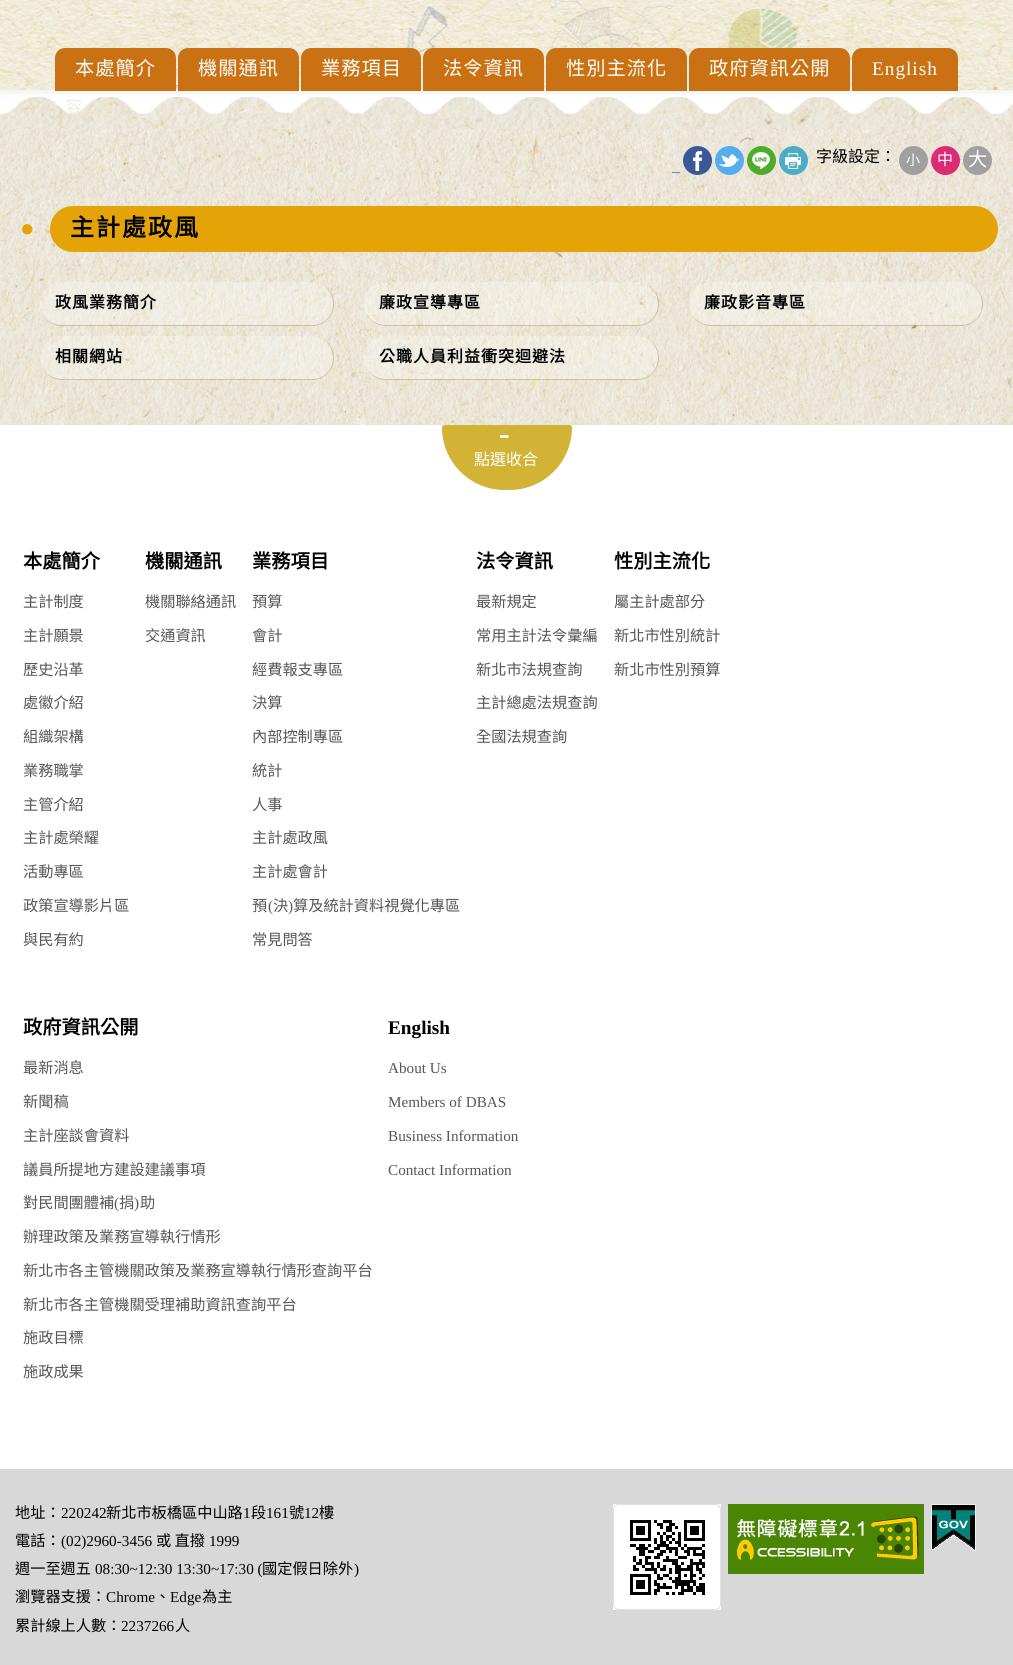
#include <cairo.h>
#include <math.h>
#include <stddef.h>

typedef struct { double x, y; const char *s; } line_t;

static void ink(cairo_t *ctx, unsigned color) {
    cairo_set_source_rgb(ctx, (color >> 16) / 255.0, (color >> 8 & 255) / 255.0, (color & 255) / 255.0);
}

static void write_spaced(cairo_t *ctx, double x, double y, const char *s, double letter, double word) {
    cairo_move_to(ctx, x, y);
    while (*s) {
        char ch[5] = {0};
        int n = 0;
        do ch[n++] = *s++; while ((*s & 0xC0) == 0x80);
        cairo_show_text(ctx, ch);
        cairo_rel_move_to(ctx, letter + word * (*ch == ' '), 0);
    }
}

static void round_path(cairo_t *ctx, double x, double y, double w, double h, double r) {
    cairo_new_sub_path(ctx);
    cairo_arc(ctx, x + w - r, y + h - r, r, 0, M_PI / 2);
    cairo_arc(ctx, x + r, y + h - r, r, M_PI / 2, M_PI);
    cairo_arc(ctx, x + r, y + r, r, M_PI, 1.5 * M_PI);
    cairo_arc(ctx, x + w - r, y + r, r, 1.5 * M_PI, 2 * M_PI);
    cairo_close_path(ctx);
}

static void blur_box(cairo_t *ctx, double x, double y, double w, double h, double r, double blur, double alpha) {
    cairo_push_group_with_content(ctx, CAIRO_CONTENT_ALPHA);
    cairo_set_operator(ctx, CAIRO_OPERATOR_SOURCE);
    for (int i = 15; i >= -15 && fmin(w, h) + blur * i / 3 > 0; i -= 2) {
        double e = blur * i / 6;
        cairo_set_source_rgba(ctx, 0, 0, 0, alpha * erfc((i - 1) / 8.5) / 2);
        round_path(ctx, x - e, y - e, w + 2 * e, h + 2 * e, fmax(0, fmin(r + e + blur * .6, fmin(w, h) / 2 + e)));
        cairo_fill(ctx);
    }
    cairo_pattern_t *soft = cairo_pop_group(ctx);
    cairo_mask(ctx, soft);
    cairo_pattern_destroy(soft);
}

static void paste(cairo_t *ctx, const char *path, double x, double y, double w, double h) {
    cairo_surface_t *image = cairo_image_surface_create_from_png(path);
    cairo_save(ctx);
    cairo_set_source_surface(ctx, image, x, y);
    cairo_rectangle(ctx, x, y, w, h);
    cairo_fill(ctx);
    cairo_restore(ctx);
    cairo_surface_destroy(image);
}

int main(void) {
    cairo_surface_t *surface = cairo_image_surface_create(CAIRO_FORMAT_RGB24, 1013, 1665);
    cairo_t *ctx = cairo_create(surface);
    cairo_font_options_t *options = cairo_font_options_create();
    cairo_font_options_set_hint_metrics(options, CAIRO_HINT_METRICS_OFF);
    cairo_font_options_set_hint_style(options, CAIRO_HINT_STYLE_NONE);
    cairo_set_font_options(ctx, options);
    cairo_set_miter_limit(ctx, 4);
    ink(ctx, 0xFFFFFF);
    cairo_paint(ctx);
    paste(ctx, "media/3.png", 0, 94, 1013, 35);
    ink(ctx, 0x000000);
    blur_box(ctx, 0, 0, 1013, 90, 0, 5, 0.1);
    paste(ctx, "media/1.png", 0, 0, 1013, 90);
    ink(ctx, 0xCA7213);
    cairo_new_path(ctx);
    cairo_move_to(ctx, 65, 48);
    cairo_line_to(ctx, 166, 48);
    cairo_curve_to(ctx, 171.5, 48, 176, 52.5, 176, 58);
    cairo_line_to(ctx, 176, 91);
    cairo_line_to(ctx, 55, 91);
    cairo_line_to(ctx, 55, 58);
    cairo_curve_to(ctx, 55, 52.5, 59.5, 48, 65, 48);
    cairo_close_path(ctx);
    cairo_fill(ctx);
    cairo_select_font_face(ctx, "Noto Sans CJK TC", CAIRO_FONT_SLANT_NORMAL, CAIRO_FONT_WEIGHT_NORMAL);
    cairo_set_font_size(ctx, 19.25);
    ink(ctx, 0xFFFFFF);
    write_spaced(ctx, 75, 75, "本處簡介", 1, 0);
    ink(ctx, 0xCA7213);
    cairo_new_path(ctx);
    cairo_move_to(ctx, 188, 48);
    cairo_line_to(ctx, 289, 48);
    cairo_curve_to(ctx, 294.5, 48, 299, 52.5, 299, 58);
    cairo_line_to(ctx, 299, 91);
    cairo_line_to(ctx, 178, 91);
    cairo_line_to(ctx, 178, 58);
    cairo_curve_to(ctx, 178, 52.5, 182.5, 48, 188, 48);
    cairo_close_path(ctx);
    cairo_fill(ctx);
    ink(ctx, 0xFFFFFF);
    write_spaced(ctx, 198, 75, "機關通訊", 1, 0);
    ink(ctx, 0xCA7213);
    cairo_new_path(ctx);
    cairo_move_to(ctx, 311, 48);
    cairo_line_to(ctx, 411, 48);
    cairo_curve_to(ctx, 416.5, 48, 421, 52.5, 421, 58);
    cairo_line_to(ctx, 421, 91);
    cairo_line_to(ctx, 301, 91);
    cairo_line_to(ctx, 301, 58);
    cairo_curve_to(ctx, 301, 52.5, 305.5, 48, 311, 48);
    cairo_close_path(ctx);
    cairo_fill(ctx);
    ink(ctx, 0xFFFFFF);
    write_spaced(ctx, 321, 75, "業務項目", 1, 0);
    ink(ctx, 0xCA7213);
    cairo_new_path(ctx);
    cairo_move_to(ctx, 433, 48);
    cairo_line_to(ctx, 534, 48);
    cairo_curve_to(ctx, 539.5, 48, 544, 52.5, 544, 58);
    cairo_line_to(ctx, 544, 91);
    cairo_line_to(ctx, 423, 91);
    cairo_line_to(ctx, 423, 58);
    cairo_curve_to(ctx, 423, 52.5, 427.5, 48, 433, 48);
    cairo_close_path(ctx);
    cairo_fill(ctx);
    ink(ctx, 0xFFFFFF);
    write_spaced(ctx, 443, 75, "法令資訊", 1, 0);
    ink(ctx, 0xCA7213);
    cairo_new_path(ctx);
    cairo_move_to(ctx, 556, 48);
    cairo_line_to(ctx, 677, 48);
    cairo_curve_to(ctx, 682.5, 48, 687, 52.5, 687, 58);
    cairo_line_to(ctx, 687, 91);
    cairo_line_to(ctx, 546, 91);
    cairo_line_to(ctx, 546, 58);
    cairo_curve_to(ctx, 546, 52.5, 550.5, 48, 556, 48);
    cairo_close_path(ctx);
    cairo_fill(ctx);
    ink(ctx, 0xFFFFFF);
    write_spaced(ctx, 566, 75, "性別主流化", 1, 0);
    ink(ctx, 0xCA7213);
    cairo_new_path(ctx);
    cairo_move_to(ctx, 699, 48);
    cairo_line_to(ctx, 840, 48);
    cairo_curve_to(ctx, 845.5, 48, 850, 52.5, 850, 58);
    cairo_line_to(ctx, 850, 91);
    cairo_line_to(ctx, 689, 91);
    cairo_line_to(ctx, 689, 58);
    cairo_curve_to(ctx, 689, 52.5, 693.5, 48, 699, 48);
    cairo_close_path(ctx);
    cairo_fill(ctx);
    ink(ctx, 0xFFFFFF);
    write_spaced(ctx, 709, 75, "政府資訊公開", 1, 0);
    ink(ctx, 0xCA7213);
    cairo_new_path(ctx);
    cairo_move_to(ctx, 862, 48);
    cairo_line_to(ctx, 948, 48);
    cairo_curve_to(ctx, 953.5, 48, 958, 52.5, 958, 58);
    cairo_line_to(ctx, 958, 91);
    cairo_line_to(ctx, 852, 91);
    cairo_line_to(ctx, 852, 58);
    cairo_curve_to(ctx, 852, 52.5, 856.5, 48, 862, 48);
    cairo_close_path(ctx);
    cairo_fill(ctx);
    cairo_select_font_face(ctx, "Liberation Serif", CAIRO_FONT_SLANT_NORMAL, CAIRO_FONT_WEIGHT_NORMAL);
    ink(ctx, 0xFFFFFF);
    write_spaced(ctx, 872, 75, "English", 1, 0);
    paste(ctx, "media/2.png", 0, 129, 1013, 296);
    cairo_select_font_face(ctx, "Noto Sans CJK TC", CAIRO_FONT_SLANT_NORMAL, CAIRO_FONT_WEIGHT_NORMAL);
    cairo_set_font_size(ctx, 16);
    ink(ctx, 0xF0ECE1);
    write_spaced(ctx, 66, 112, "容", 1, 0);
    ink(ctx, 0x000000);
    cairo_move_to(ctx, 816, 162);
    cairo_show_text(ctx, "字級設定：");
    ink(ctx, 0xA0A0A0);
    cairo_new_path(ctx);
    cairo_arc(ctx, 913.5, 160.5, 14.5, 0, 2 * M_PI);
    cairo_fill(ctx);
    cairo_set_font_size(ctx, 14);
    ink(ctx, 0xFFFFFF);
    cairo_move_to(ctx, 906, 165);
    cairo_show_text(ctx, "小");
    ink(ctx, 0xDC2B75);
    cairo_new_path(ctx);
    cairo_arc(ctx, 945.5, 160.5, 14.5, 0, 2 * M_PI);
    cairo_fill(ctx);
    cairo_set_font_size(ctx, 16);
    ink(ctx, 0xFFFFFF);
    cairo_move_to(ctx, 937, 165);
    cairo_show_text(ctx, "中");
    ink(ctx, 0xA0A0A0);
    cairo_new_path(ctx);
    cairo_arc(ctx, 977.5, 160.5, 14.5, 0, 2 * M_PI);
    cairo_fill(ctx);
    cairo_set_font_size(ctx, 19.25);
    ink(ctx, 0xFFFFFF);
    cairo_move_to(ctx, 968, 166);
    cairo_show_text(ctx, "大");
    cairo_select_font_face(ctx, "Liberation Serif", CAIRO_FONT_SLANT_NORMAL, CAIRO_FONT_WEIGHT_NORMAL);
    cairo_set_font_size(ctx, 16);
    ink(ctx, 0x337AB7);
    cairo_move_to(ctx, 672, 171);
    cairo_show_text(ctx, "_");
    ink(ctx, 0x3B5998);
    cairo_new_path(ctx);
    cairo_arc(ctx, 697.5, 160.5, 14.5, 0, 2 * M_PI);
    cairo_fill(ctx);
    paste(ctx, "media/4.png", 693, 151, 9, 20);
    ink(ctx, 0x55ACEE);
    cairo_arc(ctx, 729.5, 160.5, 14.5, 0, 2 * M_PI);
    cairo_fill(ctx);
    paste(ctx, "media/5.png", 719, 154, 20, 13);
    ink(ctx, 0x4DAC2C);
    cairo_arc(ctx, 761.5, 160.5, 14.5, 0, 2 * M_PI);
    cairo_fill(ctx);
    paste(ctx, "media/6.png", 752, 152, 18, 17);
    ink(ctx, 0x4AACC7);
    cairo_arc(ctx, 793.5, 160.5, 14.5, 0, 2 * M_PI);
    cairo_fill(ctx);
    paste(ctx, "media/7.png", 785, 153, 16, 16);
    ink(ctx, 0xE4A408);
    round_path(ctx, 50, 206, 948, 46, 23);
    cairo_fill(ctx);
    cairo_select_font_face(ctx, "Liberation Serif", CAIRO_FONT_SLANT_NORMAL, CAIRO_FONT_WEIGHT_BOLD);
    cairo_set_font_size(ctx, 24);
    write_spaced(ctx, 20, 236, "●", 2, 0);
    cairo_select_font_face(ctx, "Noto Sans CJK TC", CAIRO_FONT_SLANT_NORMAL, CAIRO_FONT_WEIGHT_BOLD);
    ink(ctx, 0x000000);
    write_spaced(ctx, 70, 236, "主計處政風", 2, 0);
    cairo_set_source_rgba(ctx, 1, 1, 1, 0.26);
    round_path(ctx, 40, 282, 294, 44, 22);
    cairo_fill(ctx);
    cairo_set_source_rgba(ctx, 0.565, 0.478, 0.239, 0.39);
    cairo_set_fill_rule(ctx, CAIRO_FILL_RULE_EVEN_ODD);
    cairo_new_path(ctx);
    cairo_move_to(ctx, 62, 282);
    cairo_line_to(ctx, 312, 282);
    cairo_curve_to(ctx, 324, 282, 334, 292, 334, 304);
    cairo_curve_to(ctx, 334, 316, 324, 326, 312, 326);
    cairo_line_to(ctx, 62, 326);
    cairo_curve_to(ctx, 50, 326, 40, 316, 40, 304);
    cairo_curve_to(ctx, 40, 292, 50, 282, 62, 282);
    cairo_close_path(ctx);
    cairo_move_to(ctx, 62, 282);
    cairo_line_to(ctx, 312, 282);
    cairo_curve_to(ctx, 324, 282, 333, 292, 333, 304);
    cairo_curve_to(ctx, 333, 316, 324, 325, 312, 325);
    cairo_line_to(ctx, 62, 325);
    cairo_curve_to(ctx, 50, 325, 40, 316, 40, 304);
    cairo_curve_to(ctx, 40, 292, 50, 282, 62, 282);
    cairo_close_path(ctx);
    cairo_fill(ctx);
    cairo_set_font_size(ctx, 16);
    ink(ctx, 0x000000);
    write_spaced(ctx, 55, 308, "政風業務簡介", 1, 0);
    cairo_set_source_rgba(ctx, 1, 1, 1, 0.26);
    round_path(ctx, 364, 282, 295, 44, 22);
    cairo_fill(ctx);
    cairo_set_source_rgba(ctx, 0.565, 0.478, 0.239, 0.39);
    cairo_new_path(ctx);
    cairo_move_to(ctx, 386, 282);
    cairo_line_to(ctx, 637, 282);
    cairo_curve_to(ctx, 649, 282, 659, 292, 659, 304);
    cairo_curve_to(ctx, 659, 316, 649, 326, 637, 326);
    cairo_line_to(ctx, 386, 326);
    cairo_curve_to(ctx, 374, 326, 364, 316, 364, 304);
    cairo_curve_to(ctx, 364, 292, 374, 282, 386, 282);
    cairo_close_path(ctx);
    cairo_move_to(ctx, 386, 282);
    cairo_line_to(ctx, 637, 282);
    cairo_curve_to(ctx, 649, 282, 658, 292, 658, 304);
    cairo_curve_to(ctx, 658, 316, 649, 325, 637, 325);
    cairo_line_to(ctx, 386, 325);
    cairo_curve_to(ctx, 374, 325, 364, 316, 364, 304);
    cairo_curve_to(ctx, 364, 292, 374, 282, 386, 282);
    cairo_close_path(ctx);
    cairo_fill(ctx);
    ink(ctx, 0x000000);
    write_spaced(ctx, 379, 308, "廉政宣導專區", 1, 0);
    cairo_set_source_rgba(ctx, 1, 1, 1, 0.26);
    round_path(ctx, 689, 282, 294, 44, 22);
    cairo_fill(ctx);
    cairo_set_source_rgba(ctx, 0.565, 0.478, 0.239, 0.39);
    cairo_new_path(ctx);
    cairo_move_to(ctx, 711, 282);
    cairo_line_to(ctx, 961, 282);
    cairo_curve_to(ctx, 973, 282, 983, 292, 983, 304);
    cairo_curve_to(ctx, 983, 316, 973, 326, 961, 326);
    cairo_line_to(ctx, 711, 326);
    cairo_curve_to(ctx, 699, 326, 689, 316, 689, 304);
    cairo_curve_to(ctx, 689, 292, 699, 282, 711, 282);
    cairo_close_path(ctx);
    cairo_move_to(ctx, 711, 282);
    cairo_line_to(ctx, 961, 282);
    cairo_curve_to(ctx, 973, 282, 982, 292, 982, 304);
    cairo_curve_to(ctx, 982, 316, 973, 325, 961, 325);
    cairo_line_to(ctx, 711, 325);
    cairo_curve_to(ctx, 699, 325, 689, 316, 689, 304);
    cairo_curve_to(ctx, 689, 292, 699, 282, 711, 282);
    cairo_close_path(ctx);
    cairo_fill(ctx);
    ink(ctx, 0x000000);
    write_spaced(ctx, 704, 308, "廉政影音專區", 1, 0);
    cairo_set_source_rgba(ctx, 1, 1, 1, 0.26);
    round_path(ctx, 40, 336, 294, 44, 22);
    cairo_fill(ctx);
    cairo_set_source_rgba(ctx, 0.565, 0.478, 0.239, 0.39);
    cairo_new_path(ctx);
    cairo_move_to(ctx, 62, 336);
    cairo_line_to(ctx, 312, 336);
    cairo_curve_to(ctx, 324, 336, 334, 346, 334, 358);
    cairo_curve_to(ctx, 334, 370, 324, 380, 312, 380);
    cairo_line_to(ctx, 62, 380);
    cairo_curve_to(ctx, 50, 380, 40, 370, 40, 358);
    cairo_curve_to(ctx, 40, 346, 50, 336, 62, 336);
    cairo_close_path(ctx);
    cairo_move_to(ctx, 62, 336);
    cairo_line_to(ctx, 312, 336);
    cairo_curve_to(ctx, 324, 336, 333, 346, 333, 358);
    cairo_curve_to(ctx, 333, 370, 324, 379, 312, 379);
    cairo_line_to(ctx, 62, 379);
    cairo_curve_to(ctx, 50, 379, 40, 370, 40, 358);
    cairo_curve_to(ctx, 40, 346, 50, 336, 62, 336);
    cairo_close_path(ctx);
    cairo_fill(ctx);
    ink(ctx, 0x000000);
    write_spaced(ctx, 55, 362, "相關網站", 1, 0);
    cairo_set_source_rgba(ctx, 1, 1, 1, 0.26);
    round_path(ctx, 364, 336, 295, 44, 22);
    cairo_fill(ctx);
    cairo_set_source_rgba(ctx, 0.565, 0.478, 0.239, 0.39);
    cairo_new_path(ctx);
    cairo_move_to(ctx, 386, 336);
    cairo_line_to(ctx, 637, 336);
    cairo_curve_to(ctx, 649, 336, 659, 346, 659, 358);
    cairo_curve_to(ctx, 659, 370, 649, 380, 637, 380);
    cairo_line_to(ctx, 386, 380);
    cairo_curve_to(ctx, 374, 380, 364, 370, 364, 358);
    cairo_curve_to(ctx, 364, 346, 374, 336, 386, 336);
    cairo_close_path(ctx);
    cairo_move_to(ctx, 386, 336);
    cairo_line_to(ctx, 637, 336);
    cairo_curve_to(ctx, 649, 336, 658, 346, 658, 358);
    cairo_curve_to(ctx, 658, 370, 649, 379, 637, 379);
    cairo_line_to(ctx, 386, 379);
    cairo_curve_to(ctx, 374, 379, 364, 370, 364, 358);
    cairo_curve_to(ctx, 364, 346, 374, 336, 386, 336);
    cairo_close_path(ctx);
    cairo_fill(ctx);
    ink(ctx, 0x000000);
    write_spaced(ctx, 379, 362, "公職人員利益衝突迴避法", 1, 0);
    ink(ctx, 0xD2B335);
    cairo_new_path(ctx);
    cairo_move_to(ctx, 444.5, 425);
    cairo_line_to(ctx, 569.5, 425);
    cairo_curve_to(ctx, 571, 425, 572, 426, 572, 427.5);
    cairo_curve_to(ctx, 572, 462, 544, 490, 509.5, 490);
    cairo_line_to(ctx, 504.5, 490);
    cairo_curve_to(ctx, 470, 490, 442, 462, 442, 427.5);
    cairo_curve_to(ctx, 442, 426, 443, 425, 444.5, 425);
    cairo_close_path(ctx);
    cairo_fill(ctx);
    cairo_select_font_face(ctx, "Liberation Serif", CAIRO_FONT_SLANT_NORMAL, CAIRO_FONT_WEIGHT_BOLD);
    cairo_set_font_size(ctx, 32);
    ink(ctx, 0xFFFFFF);
    cairo_move_to(ctx, 499, 444);
    cairo_show_text(ctx, "-");
    cairo_select_font_face(ctx, "Noto Sans CJK TC", CAIRO_FONT_SLANT_NORMAL, CAIRO_FONT_WEIGHT_NORMAL);
    cairo_set_font_size(ctx, 16);
    cairo_move_to(ctx, 474, 465);
    cairo_show_text(ctx, "點選收合");
    cairo_select_font_face(ctx, "Noto Sans CJK TC", CAIRO_FONT_SLANT_NORMAL, CAIRO_FONT_WEIGHT_BOLD);
    cairo_set_font_size(ctx, 19.25);
    ink(ctx, 0x000000);
    cairo_move_to(ctx, 23, 568);
    cairo_show_text(ctx, "本處簡介");
    cairo_select_font_face(ctx, "Noto Sans CJK TC", CAIRO_FONT_SLANT_NORMAL, CAIRO_FONT_WEIGHT_NORMAL);
    cairo_set_font_size(ctx, 15.2);
    ink(ctx, 0x565656);
    {
        static const line_t items[] = {
            {23, 607, "主計制度"},
            {23, 641, "主計願景"},
            {23, 675, "歷史沿革"},
            {23, 708, "處徽介紹"},
            {23, 742, "組織架構"},
            {23, 776, "業務職掌"},
            {23, 810, "主管介紹"},
            {23, 843, "主計處榮耀"},
            {23, 877, "活動專區"},
            {23, 911, "政策宣導影片區"},
            {23, 945, "與民有約"},
        };
        for (size_t i = 0; i < sizeof items / sizeof *items; i++) {
            cairo_move_to(ctx, items[i].x, items[i].y);
            cairo_show_text(ctx, items[i].s);
        }
    }
    cairo_select_font_face(ctx, "Noto Sans CJK TC", CAIRO_FONT_SLANT_NORMAL, CAIRO_FONT_WEIGHT_BOLD);
    cairo_set_font_size(ctx, 19.25);
    ink(ctx, 0x000000);
    cairo_move_to(ctx, 145, 568);
    cairo_show_text(ctx, "機關通訊");
    cairo_select_font_face(ctx, "Noto Sans CJK TC", CAIRO_FONT_SLANT_NORMAL, CAIRO_FONT_WEIGHT_NORMAL);
    cairo_set_font_size(ctx, 15.2);
    ink(ctx, 0x565656);
    cairo_move_to(ctx, 145, 607);
    cairo_show_text(ctx, "機關聯絡通訊");
    cairo_move_to(ctx, 145, 641);
    cairo_show_text(ctx, "交通資訊");
    cairo_select_font_face(ctx, "Noto Sans CJK TC", CAIRO_FONT_SLANT_NORMAL, CAIRO_FONT_WEIGHT_BOLD);
    cairo_set_font_size(ctx, 19.25);
    ink(ctx, 0x000000);
    cairo_move_to(ctx, 252, 568);
    cairo_show_text(ctx, "業務項目");
    cairo_select_font_face(ctx, "Noto Sans CJK TC", CAIRO_FONT_SLANT_NORMAL, CAIRO_FONT_WEIGHT_NORMAL);
    cairo_set_font_size(ctx, 15.2);
    ink(ctx, 0x565656);
    {
        static const line_t items[] = {
            {252, 607, "預算"},
            {252, 641, "會計"},
            {252, 675, "經費報支專區"},
            {252, 708, "決算"},
            {252, 742, "內部控制專區"},
            {252, 776, "統計"},
            {252, 810, "人事"},
            {252, 843, "主計處政風"},
            {252, 877, "主計處會計"},
            {252, 911, "預"},
        };
        for (size_t i = 0; i < sizeof items / sizeof *items; i++) {
            cairo_move_to(ctx, items[i].x, items[i].y);
            cairo_show_text(ctx, items[i].s);
        }
    }
    cairo_select_font_face(ctx, "Liberation Serif", CAIRO_FONT_SLANT_NORMAL, CAIRO_FONT_WEIGHT_NORMAL);
    cairo_move_to(ctx, 268, 911);
    cairo_show_text(ctx, "(");
    cairo_select_font_face(ctx, "Noto Sans CJK TC", CAIRO_FONT_SLANT_NORMAL, CAIRO_FONT_WEIGHT_NORMAL);
    cairo_move_to(ctx, 273, 911);
    cairo_show_text(ctx, "決");
    cairo_select_font_face(ctx, "Liberation Serif", CAIRO_FONT_SLANT_NORMAL, CAIRO_FONT_WEIGHT_NORMAL);
    cairo_move_to(ctx, 288, 911);
    cairo_show_text(ctx, ")");
    cairo_select_font_face(ctx, "Noto Sans CJK TC", CAIRO_FONT_SLANT_NORMAL, CAIRO_FONT_WEIGHT_NORMAL);
    cairo_move_to(ctx, 293, 911);
    cairo_show_text(ctx, "算及統計資料視覺化專區");
    cairo_move_to(ctx, 252, 945);
    cairo_show_text(ctx, "常見問答");
    cairo_select_font_face(ctx, "Noto Sans CJK TC", CAIRO_FONT_SLANT_NORMAL, CAIRO_FONT_WEIGHT_BOLD);
    cairo_set_font_size(ctx, 19.25);
    ink(ctx, 0x000000);
    cairo_move_to(ctx, 476, 568);
    cairo_show_text(ctx, "法令資訊");
    cairo_select_font_face(ctx, "Noto Sans CJK TC", CAIRO_FONT_SLANT_NORMAL, CAIRO_FONT_WEIGHT_NORMAL);
    cairo_set_font_size(ctx, 15.2);
    ink(ctx, 0x565656);
    {
        static const line_t items[] = {
            {476, 607, "最新規定"},
            {476, 641, "常用主計法令彙編"},
            {476, 675, "新北市法規查詢"},
            {476, 708, "主計總處法規查詢"},
            {476, 742, "全國法規查詢"},
        };
        for (size_t i = 0; i < sizeof items / sizeof *items; i++) {
            cairo_move_to(ctx, items[i].x, items[i].y);
            cairo_show_text(ctx, items[i].s);
        }
    }
    cairo_select_font_face(ctx, "Noto Sans CJK TC", CAIRO_FONT_SLANT_NORMAL, CAIRO_FONT_WEIGHT_BOLD);
    cairo_set_font_size(ctx, 19.25);
    ink(ctx, 0x000000);
    cairo_move_to(ctx, 614, 568);
    cairo_show_text(ctx, "性別主流化");
    cairo_select_font_face(ctx, "Noto Sans CJK TC", CAIRO_FONT_SLANT_NORMAL, CAIRO_FONT_WEIGHT_NORMAL);
    cairo_set_font_size(ctx, 15.2);
    ink(ctx, 0x565656);
    {
        static const line_t items[] = {
            {614, 607, "屬主計處部分"},
            {614, 641, "新北市性別統計"},
            {614, 675, "新北市性別預算"},
        };
        for (size_t i = 0; i < sizeof items / sizeof *items; i++) {
            cairo_move_to(ctx, items[i].x, items[i].y);
            cairo_show_text(ctx, items[i].s);
        }
    }
    cairo_select_font_face(ctx, "Noto Sans CJK TC", CAIRO_FONT_SLANT_NORMAL, CAIRO_FONT_WEIGHT_BOLD);
    cairo_set_font_size(ctx, 19.25);
    ink(ctx, 0x000000);
    cairo_move_to(ctx, 23, 1034);
    cairo_show_text(ctx, "政府資訊公開");
    cairo_select_font_face(ctx, "Noto Sans CJK TC", CAIRO_FONT_SLANT_NORMAL, CAIRO_FONT_WEIGHT_NORMAL);
    cairo_set_font_size(ctx, 15.2);
    ink(ctx, 0x565656);
    {
        static const line_t items[] = {
            {23, 1073, "最新消息"},
            {23, 1107, "新聞稿"},
            {23, 1141, "主計座談會資料"},
            {23, 1175, "議員所提地方建設建議事項"},
            {23, 1208, "對民間團體補"},
        };
        for (size_t i = 0; i < sizeof items / sizeof *items; i++) {
            cairo_move_to(ctx, items[i].x, items[i].y);
            cairo_show_text(ctx, items[i].s);
        }
    }
    cairo_select_font_face(ctx, "Liberation Serif", CAIRO_FONT_SLANT_NORMAL, CAIRO_FONT_WEIGHT_NORMAL);
    cairo_move_to(ctx, 114, 1208);
    cairo_show_text(ctx, "(");
    cairo_select_font_face(ctx, "Noto Sans CJK TC", CAIRO_FONT_SLANT_NORMAL, CAIRO_FONT_WEIGHT_NORMAL);
    cairo_move_to(ctx, 119, 1208);
    cairo_show_text(ctx, "捐");
    cairo_select_font_face(ctx, "Liberation Serif", CAIRO_FONT_SLANT_NORMAL, CAIRO_FONT_WEIGHT_NORMAL);
    cairo_move_to(ctx, 134, 1208);
    cairo_show_text(ctx, ")");
    cairo_select_font_face(ctx, "Noto Sans CJK TC", CAIRO_FONT_SLANT_NORMAL, CAIRO_FONT_WEIGHT_NORMAL);
    {
        static const line_t items[] = {
            {140, 1208, "助"},
            {23, 1242, "辦理政策及業務宣導執行情形"},
            {23, 1276, "新北市各主管機關政策及業務宣導執行情形查詢平台"},
            {23, 1310, "新北市各主管機關受理補助資訊查詢平台"},
            {23, 1343, "施政目標"},
            {23, 1377, "施政成果"},
        };
        for (size_t i = 0; i < sizeof items / sizeof *items; i++) {
            cairo_move_to(ctx, items[i].x, items[i].y);
            cairo_show_text(ctx, items[i].s);
        }
    }
    cairo_select_font_face(ctx, "Liberation Serif", CAIRO_FONT_SLANT_NORMAL, CAIRO_FONT_WEIGHT_BOLD);
    cairo_set_font_size(ctx, 19.25);
    ink(ctx, 0x000000);
    cairo_move_to(ctx, 388, 1034);
    cairo_show_text(ctx, "English");
    cairo_select_font_face(ctx, "Liberation Serif", CAIRO_FONT_SLANT_NORMAL, CAIRO_FONT_WEIGHT_NORMAL);
    cairo_set_font_size(ctx, 15.2);
    ink(ctx, 0x565656);
    {
        static const line_t items[] = {
            {388, 1073, "About Us"},
            {388, 1107, "Members of DBAS"},
            {388, 1141, "Business Information"},
            {388, 1175, "Contact Information"},
        };
        for (size_t i = 0; i < sizeof items / sizeof *items; i++) {
            cairo_move_to(ctx, items[i].x, items[i].y);
            cairo_show_text(ctx, items[i].s);
        }
    }
    ink(ctx, 0xD8D8D8);
    cairo_rectangle(ctx, 0, 1469, 1013, 196);
    cairo_fill(ctx);
    cairo_select_font_face(ctx, "Noto Sans CJK TC", CAIRO_FONT_SLANT_NORMAL, CAIRO_FONT_WEIGHT_NORMAL);
    ink(ctx, 0x000000);
    cairo_move_to(ctx, 15, 1518);
    cairo_show_text(ctx, "地址：");
    cairo_select_font_face(ctx, "Liberation Serif", CAIRO_FONT_SLANT_NORMAL, CAIRO_FONT_WEIGHT_NORMAL);
    cairo_move_to(ctx, 61, 1518);
    cairo_show_text(ctx, "220242");
    cairo_select_font_face(ctx, "Noto Sans CJK TC", CAIRO_FONT_SLANT_NORMAL, CAIRO_FONT_WEIGHT_NORMAL);
    cairo_move_to(ctx, 106, 1518);
    cairo_show_text(ctx, "新北市板橋區中山路");
    cairo_select_font_face(ctx, "Liberation Serif", CAIRO_FONT_SLANT_NORMAL, CAIRO_FONT_WEIGHT_NORMAL);
    cairo_move_to(ctx, 243, 1518);
    cairo_show_text(ctx, "1");
    cairo_select_font_face(ctx, "Noto Sans CJK TC", CAIRO_FONT_SLANT_NORMAL, CAIRO_FONT_WEIGHT_NORMAL);
    cairo_move_to(ctx, 251, 1518);
    cairo_show_text(ctx, "段");
    cairo_select_font_face(ctx, "Liberation Serif", CAIRO_FONT_SLANT_NORMAL, CAIRO_FONT_WEIGHT_NORMAL);
    cairo_move_to(ctx, 266, 1518);
    cairo_show_text(ctx, "161");
    cairo_select_font_face(ctx, "Noto Sans CJK TC", CAIRO_FONT_SLANT_NORMAL, CAIRO_FONT_WEIGHT_NORMAL);
    cairo_move_to(ctx, 289, 1518);
    cairo_show_text(ctx, "號");
    cairo_select_font_face(ctx, "Liberation Serif", CAIRO_FONT_SLANT_NORMAL, CAIRO_FONT_WEIGHT_NORMAL);
    cairo_move_to(ctx, 304, 1518);
    cairo_show_text(ctx, "12");
    cairo_select_font_face(ctx, "Noto Sans CJK TC", CAIRO_FONT_SLANT_NORMAL, CAIRO_FONT_WEIGHT_NORMAL);
    cairo_move_to(ctx, 319, 1518);
    cairo_show_text(ctx, "樓");
    cairo_move_to(ctx, 15, 1546);
    cairo_show_text(ctx, "電話：");
    cairo_select_font_face(ctx, "Liberation Serif", CAIRO_FONT_SLANT_NORMAL, CAIRO_FONT_WEIGHT_NORMAL);
    cairo_move_to(ctx, 61, 1546);
    cairo_show_text(ctx, "(02)2960-3456");
    cairo_select_font_face(ctx, "Noto Sans CJK TC", CAIRO_FONT_SLANT_NORMAL, CAIRO_FONT_WEIGHT_NORMAL);
    cairo_move_to(ctx, 156, 1546);
    cairo_show_text(ctx, "或 直撥");
    cairo_select_font_face(ctx, "Liberation Serif", CAIRO_FONT_SLANT_NORMAL, CAIRO_FONT_WEIGHT_NORMAL);
    cairo_move_to(ctx, 209, 1546);
    cairo_show_text(ctx, "1999");
    cairo_select_font_face(ctx, "Noto Sans CJK TC", CAIRO_FONT_SLANT_NORMAL, CAIRO_FONT_WEIGHT_NORMAL);
    cairo_move_to(ctx, 15, 1574);
    cairo_show_text(ctx, "週一至週五");
    cairo_select_font_face(ctx, "Liberation Serif", CAIRO_FONT_SLANT_NORMAL, CAIRO_FONT_WEIGHT_NORMAL);
    cairo_move_to(ctx, 95, 1574);
    cairo_show_text(ctx, "08:30~12:30 13:30~17:30 (");
    cairo_select_font_face(ctx, "Noto Sans CJK TC", CAIRO_FONT_SLANT_NORMAL, CAIRO_FONT_WEIGHT_NORMAL);
    cairo_move_to(ctx, 262, 1574);
    cairo_show_text(ctx, "國定假日除外");
    cairo_select_font_face(ctx, "Liberation Serif", CAIRO_FONT_SLANT_NORMAL, CAIRO_FONT_WEIGHT_NORMAL);
    cairo_move_to(ctx, 354, 1574);
    cairo_show_text(ctx, ")");
    cairo_select_font_face(ctx, "Noto Sans CJK TC", CAIRO_FONT_SLANT_NORMAL, CAIRO_FONT_WEIGHT_NORMAL);
    cairo_move_to(ctx, 15, 1602);
    cairo_show_text(ctx, "瀏覽器支援：");
    cairo_select_font_face(ctx, "Liberation Serif", CAIRO_FONT_SLANT_NORMAL, CAIRO_FONT_WEIGHT_NORMAL);
    cairo_move_to(ctx, 106, 1602);
    cairo_show_text(ctx, "Chrome");
    cairo_select_font_face(ctx, "Noto Sans CJK TC", CAIRO_FONT_SLANT_NORMAL, CAIRO_FONT_WEIGHT_NORMAL);
    cairo_move_to(ctx, 155, 1602);
    cairo_show_text(ctx, "、");
    cairo_select_font_face(ctx, "Liberation Serif", CAIRO_FONT_SLANT_NORMAL, CAIRO_FONT_WEIGHT_NORMAL);
    cairo_move_to(ctx, 170, 1602);
    cairo_show_text(ctx, "Edge");
    cairo_select_font_face(ctx, "Noto Sans CJK TC", CAIRO_FONT_SLANT_NORMAL, CAIRO_FONT_WEIGHT_NORMAL);
    cairo_move_to(ctx, 202, 1602);
    cairo_show_text(ctx, "為主");
    cairo_move_to(ctx, 15, 1631);
    cairo_show_text(ctx, "累計線上人數：");
    cairo_select_font_face(ctx, "Liberation Serif", CAIRO_FONT_SLANT_NORMAL, CAIRO_FONT_WEIGHT_NORMAL);
    cairo_move_to(ctx, 121, 1631);
    cairo_show_text(ctx, "2237266");
    cairo_select_font_face(ctx, "Noto Sans CJK TC", CAIRO_FONT_SLANT_NORMAL, CAIRO_FONT_WEIGHT_NORMAL);
    cairo_move_to(ctx, 175, 1631);
    cairo_show_text(ctx, "人");
    paste(ctx, "media/8.png", 613, 1504, 108, 106);
    paste(ctx, "media/9.png", 728, 1504, 196, 70);
    paste(ctx, "media/10.png", 931, 1504, 45, 47);
    cairo_surface_write_to_png(surface, "image.png");
    cairo_font_options_destroy(options);
    cairo_destroy(ctx);
    cairo_surface_destroy(surface);
    return 0;
}
